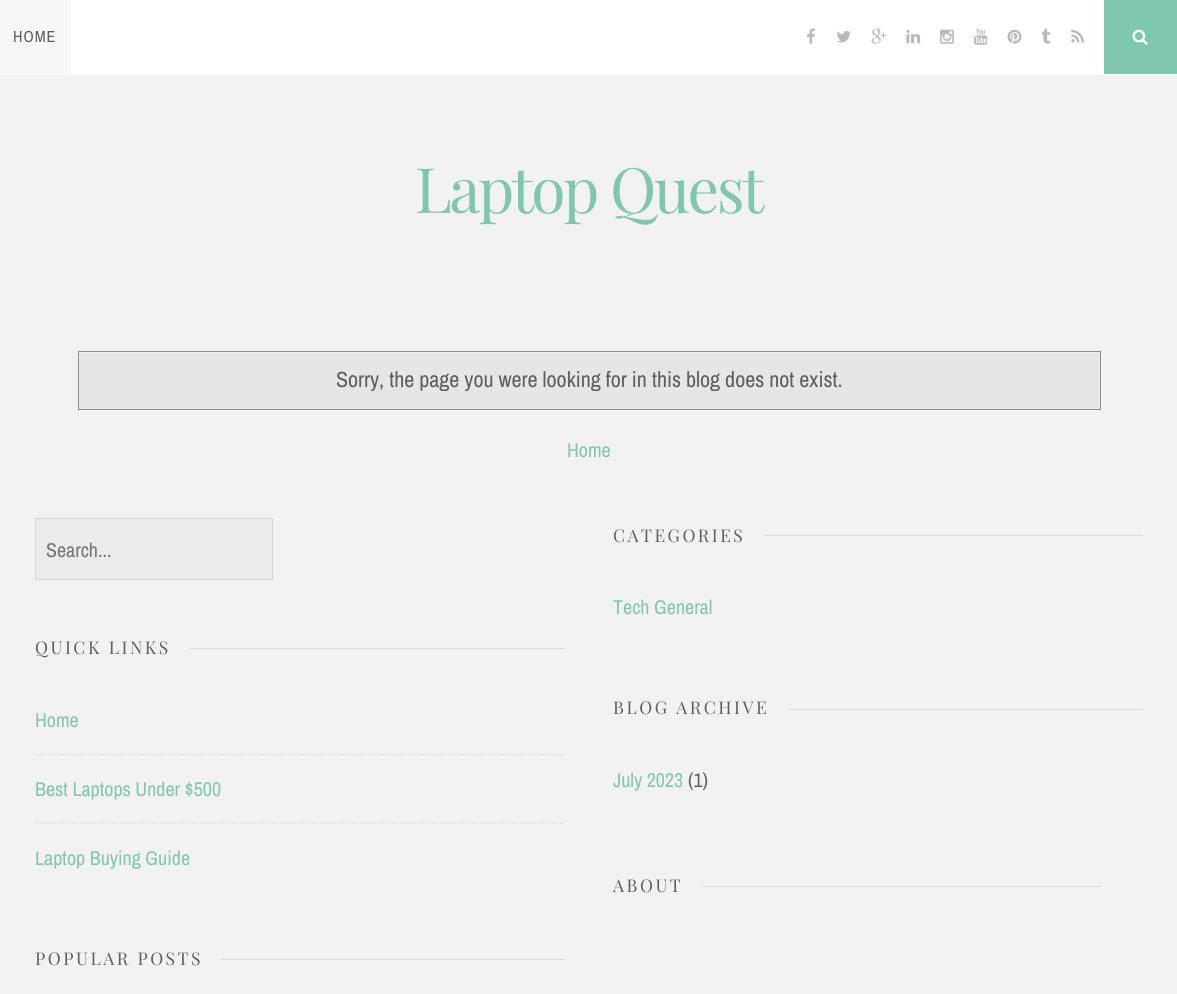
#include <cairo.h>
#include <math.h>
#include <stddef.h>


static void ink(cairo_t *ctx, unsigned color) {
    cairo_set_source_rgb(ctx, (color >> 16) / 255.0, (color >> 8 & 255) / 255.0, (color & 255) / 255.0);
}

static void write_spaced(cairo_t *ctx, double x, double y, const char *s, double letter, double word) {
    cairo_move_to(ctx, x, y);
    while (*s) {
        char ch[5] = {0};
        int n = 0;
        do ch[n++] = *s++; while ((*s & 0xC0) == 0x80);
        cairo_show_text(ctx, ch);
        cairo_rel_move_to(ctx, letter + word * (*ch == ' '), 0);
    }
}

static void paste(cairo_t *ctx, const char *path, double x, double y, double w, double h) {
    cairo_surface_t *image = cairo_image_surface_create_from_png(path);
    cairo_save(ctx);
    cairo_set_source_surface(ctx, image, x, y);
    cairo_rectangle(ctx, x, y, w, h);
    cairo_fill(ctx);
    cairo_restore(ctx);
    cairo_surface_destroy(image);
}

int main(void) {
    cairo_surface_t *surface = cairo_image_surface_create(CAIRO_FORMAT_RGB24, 1177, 994);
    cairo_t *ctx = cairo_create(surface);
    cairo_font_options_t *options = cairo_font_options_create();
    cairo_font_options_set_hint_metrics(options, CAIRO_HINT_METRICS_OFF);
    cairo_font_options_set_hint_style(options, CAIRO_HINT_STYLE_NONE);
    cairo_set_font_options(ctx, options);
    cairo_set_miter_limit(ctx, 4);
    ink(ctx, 0xF2F2F2);
    cairo_paint(ctx);
    ink(ctx, 0xFFFFFF);
    cairo_rectangle(ctx, 71, 0, 1106, 75);
    cairo_fill(ctx);
    ink(ctx, 0xF7F7F7);
    cairo_rectangle(ctx, 0, 0, 71, 75);
    cairo_fill(ctx);
    cairo_select_font_face(ctx, "Archivo Narrow", CAIRO_FONT_SLANT_NORMAL, CAIRO_FONT_WEIGHT_NORMAL);
    cairo_set_font_size(ctx, 16);
    ink(ctx, 0x5E5E5E);
    write_spaced(ctx, 13, 42, "HOME", 1, 0);
    paste(ctx, "media/1.png", 807, 28, 8, 16);
    paste(ctx, "media/2.png", 837, 31, 14, 12);
    paste(ctx, "media/3.png", 871, 28, 15, 16);
    paste(ctx, "media/4.png", 906, 30, 15, 14);
    paste(ctx, "media/5.png", 940, 29, 14, 15);
    paste(ctx, "media/6.png", 974, 28, 14, 17);
    paste(ctx, "media/7.png", 1007, 29, 15, 15);
    paste(ctx, "media/8.png", 1041, 28, 10, 16);
    paste(ctx, "media/9.png", 1071, 29, 13, 14);
    ink(ctx, 0x7FC7AF);
    cairo_rectangle(ctx, 1104, 0, 73, 74);
    cairo_fill(ctx);
    paste(ctx, "media/10.png", 1132, 29, 16, 16);
    cairo_select_font_face(ctx, "Playfair Display", CAIRO_FONT_SLANT_NORMAL, CAIRO_FONT_WEIGHT_NORMAL);
    cairo_set_font_size(ctx, 62.5);
    write_spaced(ctx, 415, 213, "Laptop Quest", -2.5, 0);
    cairo_rectangle(ctx, 78.5, 351.5, 1022, 58);
    ink(ctx, 0x919191);
    cairo_set_line_width(ctx, 1);
    cairo_stroke(ctx);
    ink(ctx, 0xE6E6E6);
    cairo_rectangle(ctx, 79, 353, 1021, 56);
    cairo_fill(ctx);
    cairo_select_font_face(ctx, "Archivo Narrow", CAIRO_FONT_SLANT_NORMAL, CAIRO_FONT_WEIGHT_NORMAL);
    cairo_set_font_size(ctx, 22);
    ink(ctx, 0x5E5E5E);
    cairo_move_to(ctx, 336, 387);
    cairo_show_text(ctx, "Sorry, the page you were looking for in this blog does not exist.");
    cairo_set_font_size(ctx, 20);
    ink(ctx, 0x7FC7AF);
    cairo_move_to(ctx, 567, 457);
    cairo_show_text(ctx, "Home");
    cairo_select_font_face(ctx, "Playfair Display", CAIRO_FONT_SLANT_NORMAL, CAIRO_FONT_WEIGHT_NORMAL);
    cairo_set_font_size(ctx, 17.5);
    ink(ctx, 0x5E5E5E);
    write_spaced(ctx, 613, 542, "CATEGORIES", 2.5, 0);
    ink(ctx, 0xDADADA);
    cairo_rectangle(ctx, 764, 535, 379, 1);
    cairo_fill(ctx);
    cairo_select_font_face(ctx, "Archivo Narrow", CAIRO_FONT_SLANT_NORMAL, CAIRO_FONT_WEIGHT_NORMAL);
    cairo_set_font_size(ctx, 20);
    ink(ctx, 0x7FC7AF);
    cairo_move_to(ctx, 613, 614);
    cairo_show_text(ctx, "Tech General");
    cairo_select_font_face(ctx, "Playfair Display", CAIRO_FONT_SLANT_NORMAL, CAIRO_FONT_WEIGHT_NORMAL);
    cairo_set_font_size(ctx, 17.5);
    ink(ctx, 0x5E5E5E);
    write_spaced(ctx, 35, 654, "QUICK LINKS", 2.5, 0);
    ink(ctx, 0xDADADA);
    cairo_rectangle(ctx, 190, 648, 375, 1);
    cairo_fill(ctx);
    cairo_new_path(ctx);
    cairo_move_to(ctx, 35, 754.5);
    cairo_line_to(ctx, 565, 754.5);
    cairo_set_line_width(ctx, 1.2);
    cairo_set_dash(ctx, (double[]){1.25, 1.25}, 2, 0);
    cairo_stroke(ctx);
    cairo_select_font_face(ctx, "Archivo Narrow", CAIRO_FONT_SLANT_NORMAL, CAIRO_FONT_WEIGHT_NORMAL);
    cairo_set_font_size(ctx, 20);
    ink(ctx, 0x7FC7AF);
    cairo_move_to(ctx, 35, 727);
    cairo_show_text(ctx, "Home");
    cairo_new_path(ctx);
    cairo_move_to(ctx, 35, 823);
    cairo_line_to(ctx, 565, 823);
    ink(ctx, 0xDADADA);
    cairo_stroke(ctx);
    ink(ctx, 0x7FC7AF);
    cairo_move_to(ctx, 35, 796);
    cairo_show_text(ctx, "Best Laptops Under $500");
    cairo_move_to(ctx, 35, 865);
    cairo_show_text(ctx, "Laptop Buying Guide");
    cairo_select_font_face(ctx, "Playfair Display", CAIRO_FONT_SLANT_NORMAL, CAIRO_FONT_WEIGHT_NORMAL);
    cairo_set_font_size(ctx, 17.5);
    ink(ctx, 0x5E5E5E);
    write_spaced(ctx, 613, 714, "BLOG ARCHIVE", 2.5, 0);
    ink(ctx, 0xDADADA);
    cairo_rectangle(ctx, 788, 709, 355, 1);
    cairo_fill(ctx);
    cairo_select_font_face(ctx, "Archivo Narrow", CAIRO_FONT_SLANT_NORMAL, CAIRO_FONT_WEIGHT_NORMAL);
    cairo_set_font_size(ctx, 20);
    ink(ctx, 0x7FC7AF);
    cairo_move_to(ctx, 613, 787);
    cairo_show_text(ctx, "July 2023");
    ink(ctx, 0x5E5E5E);
    cairo_move_to(ctx, 688, 787);
    cairo_show_text(ctx, "(1)");
    cairo_select_font_face(ctx, "Playfair Display", CAIRO_FONT_SLANT_NORMAL, CAIRO_FONT_WEIGHT_NORMAL);
    cairo_set_font_size(ctx, 17.5);
    write_spaced(ctx, 613, 892, "ABOUT", 2.5, 0);
    ink(ctx, 0xDADADA);
    cairo_rectangle(ctx, 703, 886, 398, 1);
    cairo_fill(ctx);
    ink(ctx, 0x5E5E5E);
    write_spaced(ctx, 35, 965, "POPULAR POSTS", 2.5, 0);
    ink(ctx, 0xDADADA);
    cairo_rectangle(ctx, 221, 959, 344, 1);
    cairo_fill(ctx);
    ink(ctx, 0xEBEBEB);
    cairo_rectangle(ctx, 35.5, 518.5, 237, 61);
    cairo_fill_preserve(ctx);
    ink(ctx, 0xD4D4D4);
    cairo_set_line_width(ctx, 1);
    cairo_set_dash(ctx, NULL, 0, 0);
    cairo_stroke(ctx);
    cairo_select_font_face(ctx, "Archivo Narrow", CAIRO_FONT_SLANT_NORMAL, CAIRO_FONT_WEIGHT_NORMAL);
    cairo_set_font_size(ctx, 20);
    ink(ctx, 0x757575);
    cairo_move_to(ctx, 46, 557);
    cairo_show_text(ctx, "Search...");
    cairo_surface_write_to_png(surface, "image.png");
    cairo_font_options_destroy(options);
    cairo_destroy(ctx);
    cairo_surface_destroy(surface);
    return 0;
}
